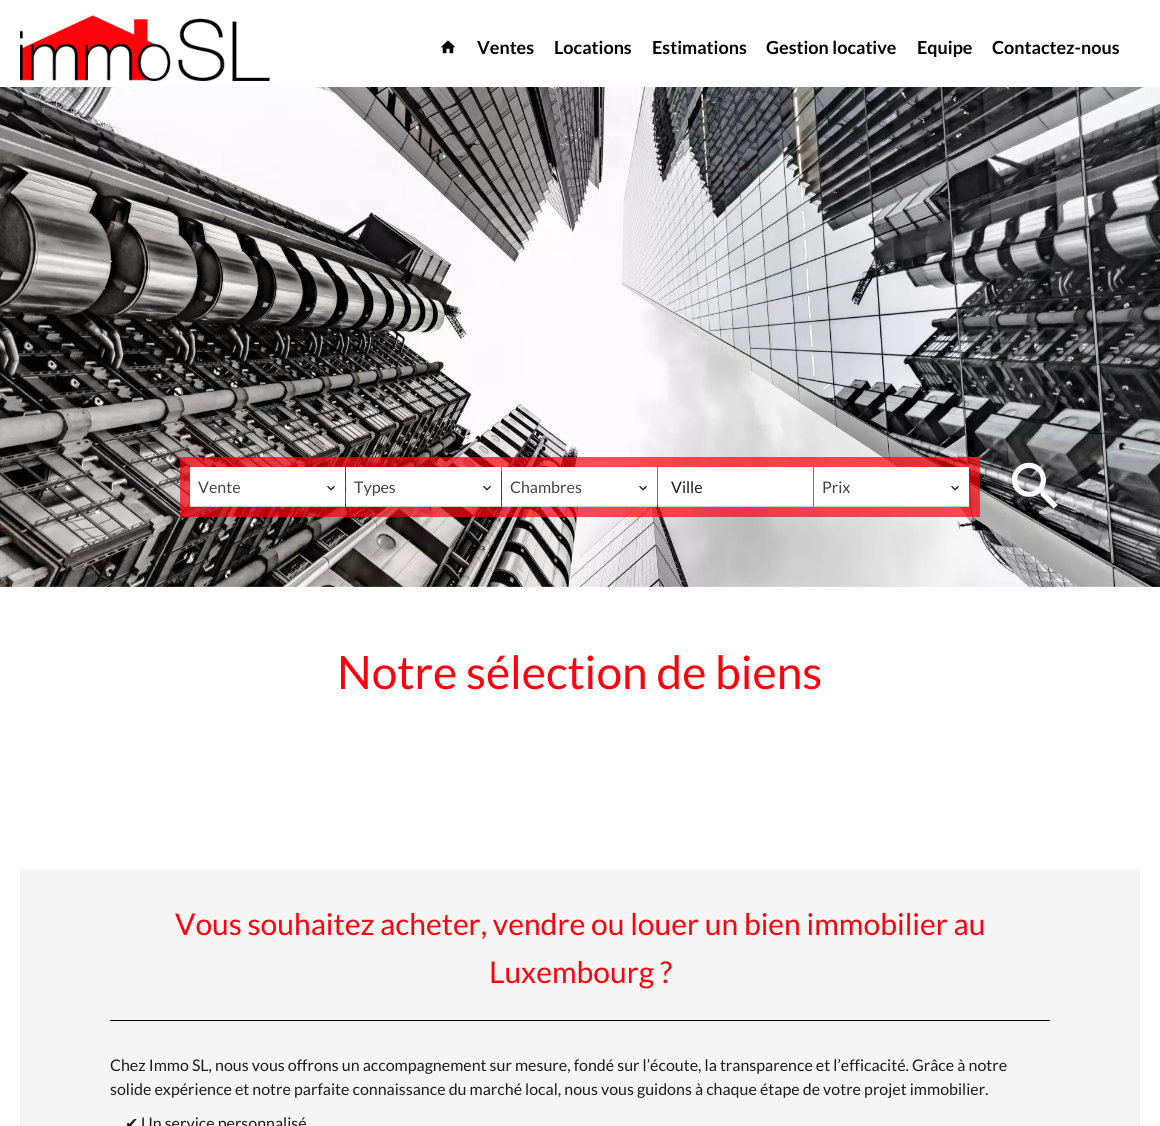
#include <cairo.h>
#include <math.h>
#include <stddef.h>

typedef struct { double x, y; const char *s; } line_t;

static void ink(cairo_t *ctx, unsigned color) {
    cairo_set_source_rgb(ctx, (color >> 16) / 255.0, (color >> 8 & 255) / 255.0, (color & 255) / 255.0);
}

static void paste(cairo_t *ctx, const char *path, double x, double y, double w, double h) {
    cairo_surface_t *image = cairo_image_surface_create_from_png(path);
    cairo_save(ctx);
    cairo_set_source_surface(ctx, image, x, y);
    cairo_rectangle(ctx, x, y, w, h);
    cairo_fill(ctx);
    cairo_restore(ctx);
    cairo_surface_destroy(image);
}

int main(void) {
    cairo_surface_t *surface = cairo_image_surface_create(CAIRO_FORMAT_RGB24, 1160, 1126);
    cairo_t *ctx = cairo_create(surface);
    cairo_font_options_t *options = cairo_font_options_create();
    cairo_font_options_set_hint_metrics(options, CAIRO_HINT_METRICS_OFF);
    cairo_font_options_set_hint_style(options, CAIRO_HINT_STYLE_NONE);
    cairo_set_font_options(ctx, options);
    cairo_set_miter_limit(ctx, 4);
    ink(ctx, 0xFFFFFF);
    cairo_paint(ctx);
    paste(ctx, "media/1.png", 20, 15, 250, 66);
    paste(ctx, "media/2.png", 440, 40, 16, 14);
    cairo_select_font_face(ctx, "Lato", CAIRO_FONT_SLANT_NORMAL, CAIRO_FONT_WEIGHT_BOLD);
    cairo_set_font_size(ctx, 18);
    ink(ctx, 0x000000);
    {
        static const line_t items[] = {
            {477, 54, "Ventes"},
            {554, 54, "Locations"},
            {652, 54, "Estimations"},
            {766, 54, "Gestion locative"},
            {917, 54, "Equipe"},
            {992, 54, "Contactez-nous"},
        };
        for (size_t i = 0; i < sizeof items / sizeof *items; i++) {
            cairo_move_to(ctx, items[i].x, items[i].y);
            cairo_show_text(ctx, items[i].s);
        }
    }
    paste(ctx, "media/3.png", 0, 87, 1160, 500);
    cairo_set_source_rgba(ctx, 1, 0.004, 0.047, 0.7);
    cairo_rectangle(ctx, 180, 457, 800, 60);
    cairo_fill(ctx);
    ink(ctx, 0xFFFFFF);
    cairo_rectangle(ctx, 190, 467, 155, 39);
    cairo_fill(ctx);
    ink(ctx, 0xCCCCCC);
    cairo_rectangle(ctx, 190, 506, 155, 1);
    cairo_fill(ctx);
    cairo_select_font_face(ctx, "Lato", CAIRO_FONT_SLANT_NORMAL, CAIRO_FONT_WEIGHT_NORMAL);
    cairo_set_font_size(ctx, 16);
    ink(ctx, 0x444444);
    cairo_move_to(ctx, 198, 493);
    cairo_show_text(ctx, "Vente");
    paste(ctx, "media/4.png", 327, 485, 8, 6);
    ink(ctx, 0xFFFFFF);
    cairo_rectangle(ctx, 346, 467, 155, 39);
    cairo_fill(ctx);
    ink(ctx, 0xCCCCCC);
    cairo_rectangle(ctx, 346, 506, 155, 1);
    cairo_fill(ctx);
    ink(ctx, 0x444444);
    cairo_move_to(ctx, 354, 493);
    cairo_show_text(ctx, "Types");
    paste(ctx, "media/4.png", 483, 485, 8, 6);
    ink(ctx, 0xFFFFFF);
    cairo_rectangle(ctx, 502, 467, 155, 39);
    cairo_fill(ctx);
    ink(ctx, 0xCCCCCC);
    cairo_rectangle(ctx, 502, 506, 155, 1);
    cairo_fill(ctx);
    ink(ctx, 0x444444);
    cairo_move_to(ctx, 510, 493);
    cairo_show_text(ctx, "Chambres");
    paste(ctx, "media/4.png", 639, 485, 8, 6);
    ink(ctx, 0xFFFFFF);
    cairo_rectangle(ctx, 658, 467, 155, 39);
    cairo_fill(ctx);
    ink(ctx, 0xCCCCCC);
    cairo_rectangle(ctx, 658, 506, 155, 1);
    cairo_fill(ctx);
    ink(ctx, 0x1B1B1B);
    cairo_move_to(ctx, 671, 493);
    cairo_show_text(ctx, "Ville");
    ink(ctx, 0xFFFFFF);
    cairo_rectangle(ctx, 814, 467, 155, 39);
    cairo_fill(ctx);
    ink(ctx, 0xCCCCCC);
    cairo_rectangle(ctx, 814, 506, 155, 1);
    cairo_fill(ctx);
    ink(ctx, 0x444444);
    cairo_move_to(ctx, 822, 493);
    cairo_show_text(ctx, "Prix");
    paste(ctx, "media/4.png", 951, 485, 8, 6);
    paste(ctx, "media/5.png", 1011, 462, 47, 47);
    cairo_set_font_size(ctx, 46);
    ink(ctx, 0xFF010C);
    cairo_move_to(ctx, 337, 689);
    cairo_show_text(ctx, "Notre sélection de biens");
    ink(ctx, 0xF5F5F5);
    cairo_rectangle(ctx, 20, 869, 1120, 257);
    cairo_fill(ctx);
    ink(ctx, 0x000000);
    cairo_rectangle(ctx, 110, 1020, 940, 1);
    cairo_fill(ctx);
    cairo_set_font_size(ctx, 30);
    ink(ctx, 0xFF010C);
    cairo_move_to(ctx, 175, 935);
    cairo_show_text(ctx, "Vous souhaitez acheter, vendre ou louer un bien immobilier au");
    cairo_move_to(ctx, 489, 983);
    cairo_show_text(ctx, "Luxembourg ?");
    cairo_set_font_size(ctx, 16);
    ink(ctx, 0x1B1B1B);
    cairo_move_to(ctx, 110, 1071);
    cairo_show_text(ctx, "Chez Immo SL, nous vous offrons un accompagnement sur mesure, fondé sur l’écoute, la transparence et l’efficacité. Grâce à notre");
    cairo_move_to(ctx, 110, 1095);
    cairo_show_text(ctx, "solide expérience et notre parfaite connaissance du marché local, nous vous guidons à chaque étape de votre projet immobilier.");
    cairo_select_font_face(ctx, "DejaVu Sans", CAIRO_FONT_SLANT_NORMAL, CAIRO_FONT_WEIGHT_NORMAL);
    cairo_move_to(ctx, 125, 1129);
    cairo_show_text(ctx, "✔");
    cairo_select_font_face(ctx, "Lato", CAIRO_FONT_SLANT_NORMAL, CAIRO_FONT_WEIGHT_NORMAL);
    cairo_move_to(ctx, 141, 1129);
    cairo_show_text(ctx, "Un service personnalisé");
    cairo_surface_write_to_png(surface, "image.png");
    cairo_font_options_destroy(options);
    cairo_destroy(ctx);
    cairo_surface_destroy(surface);
    return 0;
}
